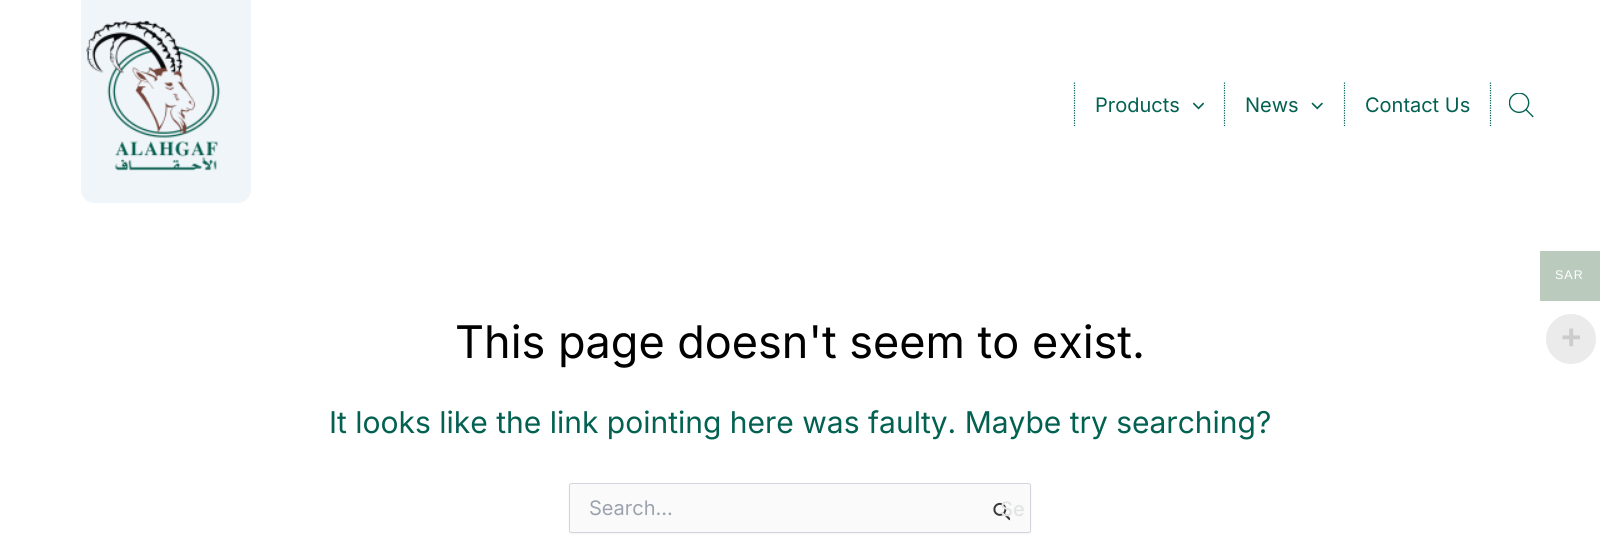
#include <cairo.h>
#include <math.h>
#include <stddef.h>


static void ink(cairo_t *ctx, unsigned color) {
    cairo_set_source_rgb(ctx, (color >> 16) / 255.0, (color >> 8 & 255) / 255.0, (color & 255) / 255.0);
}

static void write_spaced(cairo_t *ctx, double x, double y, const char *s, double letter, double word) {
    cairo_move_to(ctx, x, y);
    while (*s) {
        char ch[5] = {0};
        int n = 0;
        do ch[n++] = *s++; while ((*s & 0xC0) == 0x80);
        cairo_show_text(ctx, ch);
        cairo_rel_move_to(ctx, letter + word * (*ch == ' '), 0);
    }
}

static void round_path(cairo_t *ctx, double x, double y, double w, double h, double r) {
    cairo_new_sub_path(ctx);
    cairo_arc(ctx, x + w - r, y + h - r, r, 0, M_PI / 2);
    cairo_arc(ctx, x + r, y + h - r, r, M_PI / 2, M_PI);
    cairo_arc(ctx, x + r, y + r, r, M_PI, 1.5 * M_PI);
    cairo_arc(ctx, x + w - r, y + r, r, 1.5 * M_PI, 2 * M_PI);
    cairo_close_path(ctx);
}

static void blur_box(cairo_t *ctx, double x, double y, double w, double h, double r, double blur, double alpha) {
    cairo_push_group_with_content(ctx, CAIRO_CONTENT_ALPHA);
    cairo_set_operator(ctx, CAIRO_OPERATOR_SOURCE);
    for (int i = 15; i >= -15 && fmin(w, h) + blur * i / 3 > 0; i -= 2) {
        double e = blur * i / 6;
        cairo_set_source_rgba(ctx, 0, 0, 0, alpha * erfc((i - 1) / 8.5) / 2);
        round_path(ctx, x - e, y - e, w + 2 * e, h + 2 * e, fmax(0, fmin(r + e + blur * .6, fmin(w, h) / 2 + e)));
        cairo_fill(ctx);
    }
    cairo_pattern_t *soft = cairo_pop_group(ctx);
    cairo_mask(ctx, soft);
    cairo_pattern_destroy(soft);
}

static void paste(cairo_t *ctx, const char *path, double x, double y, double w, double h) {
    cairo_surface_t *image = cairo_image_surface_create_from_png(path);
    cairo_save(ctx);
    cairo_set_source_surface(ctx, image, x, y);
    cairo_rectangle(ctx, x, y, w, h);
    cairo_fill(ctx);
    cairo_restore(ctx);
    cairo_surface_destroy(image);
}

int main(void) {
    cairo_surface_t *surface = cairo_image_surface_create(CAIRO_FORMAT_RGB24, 1600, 548);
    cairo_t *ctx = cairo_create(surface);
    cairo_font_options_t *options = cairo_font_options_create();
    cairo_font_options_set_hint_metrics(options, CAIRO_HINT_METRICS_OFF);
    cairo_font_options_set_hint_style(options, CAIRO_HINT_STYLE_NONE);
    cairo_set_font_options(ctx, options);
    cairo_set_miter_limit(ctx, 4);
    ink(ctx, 0xFFFFFF);
    cairo_paint(ctx);
    ink(ctx, 0xF0F5FA);
    cairo_new_path(ctx);
    cairo_move_to(ctx, 81, 0);
    cairo_line_to(ctx, 251, 0);
    cairo_line_to(ctx, 251, 190);
    cairo_curve_to(ctx, 251, 197, 245, 203, 238, 203);
    cairo_line_to(ctx, 94, 203);
    cairo_curve_to(ctx, 87, 203, 81, 197, 81, 190);
    cairo_close_path(ctx);
    cairo_fill(ctx);
    paste(ctx, "media/1.png", 86, 20, 135, 151);
    cairo_new_path(ctx);
    cairo_move_to(ctx, 1074.5, 82.5);
    cairo_line_to(ctx, 1074.5, 126);
    ink(ctx, 0x036151);
    cairo_set_line_width(ctx, 1.2);
    cairo_set_dash(ctx, (double[]){1.25, 1.25}, 2, 0);
    cairo_stroke(ctx);
    cairo_select_font_face(ctx, "Inter", CAIRO_FONT_SLANT_NORMAL, CAIRO_FONT_WEIGHT_NORMAL);
    cairo_set_font_size(ctx, 20);
    cairo_move_to(ctx, 1095, 112);
    cairo_show_text(ctx, "Products");
    paste(ctx, "media/2.png", 1193, 102, 11, 8);
    cairo_new_path(ctx);
    cairo_move_to(ctx, 1224.5, 82.5);
    cairo_line_to(ctx, 1224.5, 126);
    cairo_stroke(ctx);
    cairo_move_to(ctx, 1245, 112);
    cairo_show_text(ctx, "News");
    paste(ctx, "media/3.png", 1311, 102, 12, 8);
    cairo_new_path(ctx);
    cairo_move_to(ctx, 1344.5, 82.5);
    cairo_line_to(ctx, 1344.5, 126);
    cairo_stroke(ctx);
    cairo_move_to(ctx, 1365, 112);
    cairo_show_text(ctx, "Contact Us");
    cairo_new_path(ctx);
    cairo_move_to(ctx, 1490.5, 82.5);
    cairo_line_to(ctx, 1490.5, 126);
    cairo_stroke(ctx);
    paste(ctx, "media/4.png", 1509, 93, 25, 25);
    cairo_set_font_size(ctx, 45);
    ink(ctx, 0x000000);
    cairo_move_to(ctx, 455, 358);
    cairo_show_text(ctx, "This page doesn't seem to exist.");
    cairo_set_font_size(ctx, 30);
    ink(ctx, 0x036151);
    cairo_move_to(ctx, 329, 433);
    cairo_show_text(ctx, "It looks like the link pointing here was faulty. Maybe try searching?");
    ink(ctx, 0x000000);
    blur_box(ctx, 569, 484, 462, 50, 2.5, 1, 0.05);
    ink(ctx, 0xFAFAFA);
    round_path(ctx, 569.5, 483.5, 461, 49, 2);
    cairo_fill_preserve(ctx);
    ink(ctx, 0xD1D5DB);
    cairo_set_line_width(ctx, 1);
    cairo_set_dash(ctx, NULL, 0, 0);
    cairo_stroke(ctx);
    cairo_set_font_size(ctx, 20);
    ink(ctx, 0x9CA3AF);
    cairo_move_to(ctx, 589, 515);
    cairo_show_text(ctx, "Search...");
    paste(ctx, "media/5.png", 993, 502, 17, 19);
    cairo_select_font_face(ctx, "Inter Medium", CAIRO_FONT_SLANT_NORMAL, CAIRO_FONT_WEIGHT_NORMAL);
    ink(ctx, 0xE2E3E3);
    cairo_move_to(ctx, 1000, 516);
    cairo_show_text(ctx, "Se");
    ink(ctx, 0xBACABC);
    cairo_rectangle(ctx, 1540, 251, 60, 50);
    cairo_fill(ctx);
    cairo_select_font_face(ctx, "Liberation Sans", CAIRO_FONT_SLANT_NORMAL, CAIRO_FONT_WEIGHT_NORMAL);
    cairo_set_font_size(ctx, 12.5);
    ink(ctx, 0xFFFFFF);
    write_spaced(ctx, 1555, 279, "SAR", 1, 0);
    ink(ctx, 0xEBEBEB);
    cairo_new_path(ctx);
    cairo_arc(ctx, 1571, 339, 25, 0, 2 * M_PI);
    cairo_fill(ctx);
    cairo_select_font_face(ctx, "Liberation Sans", CAIRO_FONT_SLANT_NORMAL, CAIRO_FONT_WEIGHT_BOLD);
    cairo_set_font_size(ctx, 35);
    ink(ctx, 0xCCCCCC);
    cairo_move_to(ctx, 1561, 349);
    cairo_show_text(ctx, "+");
    cairo_surface_write_to_png(surface, "image.png");
    cairo_font_options_destroy(options);
    cairo_destroy(ctx);
    cairo_surface_destroy(surface);
    return 0;
}
